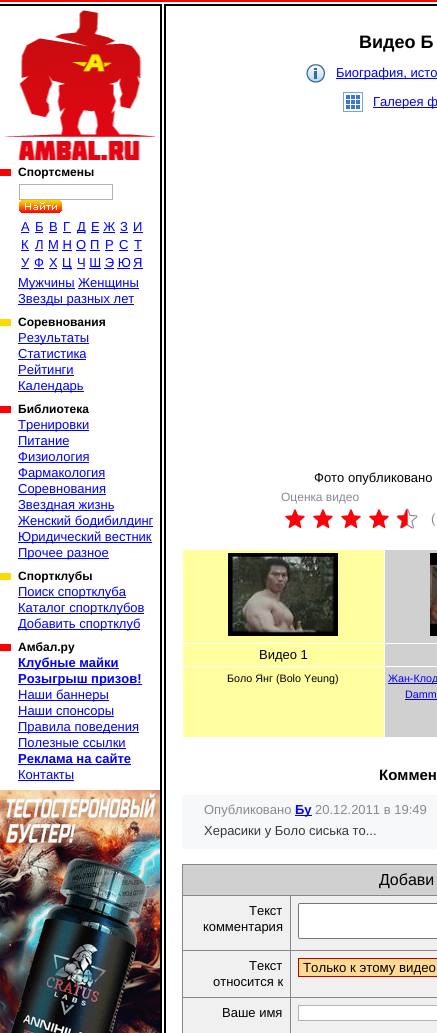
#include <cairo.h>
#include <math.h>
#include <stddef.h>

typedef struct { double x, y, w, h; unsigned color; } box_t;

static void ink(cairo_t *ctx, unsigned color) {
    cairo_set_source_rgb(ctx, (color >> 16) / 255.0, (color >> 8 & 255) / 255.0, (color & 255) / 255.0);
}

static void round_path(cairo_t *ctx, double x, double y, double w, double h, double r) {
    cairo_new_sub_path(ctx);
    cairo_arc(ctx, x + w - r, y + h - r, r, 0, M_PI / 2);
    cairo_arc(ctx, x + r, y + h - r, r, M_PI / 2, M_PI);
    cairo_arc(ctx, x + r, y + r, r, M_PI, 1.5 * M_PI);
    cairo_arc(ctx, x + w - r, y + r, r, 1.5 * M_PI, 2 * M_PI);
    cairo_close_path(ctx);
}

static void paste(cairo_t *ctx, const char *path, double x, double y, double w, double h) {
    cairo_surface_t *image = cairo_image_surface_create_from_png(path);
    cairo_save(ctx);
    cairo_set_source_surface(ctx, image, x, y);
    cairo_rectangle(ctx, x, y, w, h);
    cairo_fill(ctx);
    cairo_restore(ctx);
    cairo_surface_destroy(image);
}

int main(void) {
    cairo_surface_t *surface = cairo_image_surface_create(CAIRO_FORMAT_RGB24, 437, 1033);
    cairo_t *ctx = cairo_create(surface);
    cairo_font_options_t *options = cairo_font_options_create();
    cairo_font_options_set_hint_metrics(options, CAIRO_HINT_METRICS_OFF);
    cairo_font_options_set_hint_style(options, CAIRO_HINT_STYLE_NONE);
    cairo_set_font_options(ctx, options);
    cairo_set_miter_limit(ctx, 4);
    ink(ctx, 0xFFFFFF);
    cairo_paint(ctx);
    paste(ctx, "media/1.png", 0, 0, 160, 6);
    paste(ctx, "media/2.png", 160, 0, 6, 6);
    paste(ctx, "media/3.png", 166, 0, 271, 6);
    paste(ctx, "media/4.png", 5, 10, 150, 150);
    paste(ctx, "media/5.png", 0, 169, 11, 7);
    cairo_select_font_face(ctx, "Liberation Sans", CAIRO_FONT_SLANT_NORMAL, CAIRO_FONT_WEIGHT_BOLD);
    cairo_set_font_size(ctx, 12);
    ink(ctx, 0x000000);
    cairo_move_to(ctx, 18, 176);
    cairo_show_text(ctx, "Спортсмены");
    cairo_rectangle(ctx, 19.5, 184.5, 93, 15);
    ink(ctx, 0xB3B3B3);
    cairo_set_line_width(ctx, 1);
    cairo_stroke(ctx);
    paste(ctx, "media/6.png", 19, 200, 43, 13);
    cairo_select_font_face(ctx, "Liberation Sans", CAIRO_FONT_SLANT_NORMAL, CAIRO_FONT_WEIGHT_NORMAL);
    cairo_set_font_size(ctx, 13);
    ink(ctx, 0x0000FF);
    cairo_move_to(ctx, 21, 231);
    cairo_show_text(ctx, "А");
    cairo_rectangle(ctx, 21, 232, 8, 1);
    cairo_fill(ctx);
    cairo_move_to(ctx, 35, 231);
    cairo_show_text(ctx, "Б");
    cairo_rectangle(ctx, 35, 232, 8, 1);
    cairo_fill(ctx);
    cairo_move_to(ctx, 49, 231);
    cairo_show_text(ctx, "В");
    cairo_rectangle(ctx, 49, 232, 8, 1);
    cairo_fill(ctx);
    cairo_move_to(ctx, 63, 231);
    cairo_show_text(ctx, "Г");
    cairo_rectangle(ctx, 63, 232, 8, 1);
    cairo_fill(ctx);
    cairo_rectangle(ctx, 77, 232, 8, 1);
    cairo_fill(ctx);
    cairo_move_to(ctx, 77, 231);
    cairo_show_text(ctx, "Д");
    cairo_move_to(ctx, 91, 231);
    cairo_show_text(ctx, "Е Ж");
    cairo_rectangle(ctx, 91, 232, 8, 1);
    cairo_fill(ctx);
    cairo_move_to(ctx, 120, 231);
    cairo_show_text(ctx, "З");
    cairo_rectangle(ctx, 120, 232, 8, 1);
    cairo_fill(ctx);
    cairo_move_to(ctx, 133, 231);
    cairo_show_text(ctx, "И");
    cairo_rectangle(ctx, 133, 232, 10, 1);
    cairo_fill(ctx);
    cairo_rectangle(ctx, 103, 232, 12, 1);
    cairo_fill(ctx);
    cairo_move_to(ctx, 21, 249);
    cairo_show_text(ctx, "К");
    cairo_rectangle(ctx, 21, 250, 8, 1);
    cairo_fill(ctx);
    cairo_move_to(ctx, 35, 249);
    cairo_show_text(ctx, "Л");
    cairo_rectangle(ctx, 35, 250, 8, 1);
    cairo_fill(ctx);
    cairo_move_to(ctx, 48, 249);
    cairo_show_text(ctx, "М Н");
    cairo_rectangle(ctx, 48, 250, 10, 1);
    cairo_fill(ctx);
    cairo_move_to(ctx, 76, 249);
    cairo_show_text(ctx, "О");
    cairo_rectangle(ctx, 76, 250, 10, 1);
    cairo_fill(ctx);
    cairo_move_to(ctx, 90, 249);
    cairo_show_text(ctx, "П");
    cairo_rectangle(ctx, 90, 250, 10, 1);
    cairo_fill(ctx);
    cairo_move_to(ctx, 105, 249);
    cairo_show_text(ctx, "Р");
    cairo_rectangle(ctx, 105, 250, 8, 1);
    cairo_fill(ctx);
    cairo_move_to(ctx, 119, 249);
    cairo_show_text(ctx, "С");
    cairo_rectangle(ctx, 119, 250, 9, 1);
    cairo_fill(ctx);
    cairo_move_to(ctx, 134, 249);
    cairo_show_text(ctx, "Т");
    cairo_rectangle(ctx, 134, 250, 8, 1);
    cairo_fill(ctx);
    cairo_rectangle(ctx, 62, 250, 10, 1);
    cairo_fill(ctx);
    cairo_move_to(ctx, 21, 267);
    cairo_show_text(ctx, "У");
    cairo_rectangle(ctx, 21, 268, 8, 1);
    cairo_fill(ctx);
    cairo_move_to(ctx, 34, 267);
    cairo_show_text(ctx, "Ф");
    cairo_rectangle(ctx, 34, 268, 10, 1);
    cairo_fill(ctx);
    cairo_move_to(ctx, 49, 267);
    cairo_show_text(ctx, "Х");
    cairo_rectangle(ctx, 49, 268, 8, 1);
    cairo_fill(ctx);
    cairo_rectangle(ctx, 62, 268, 10, 1);
    cairo_fill(ctx);
    cairo_move_to(ctx, 62, 267);
    cairo_show_text(ctx, "Ц");
    cairo_move_to(ctx, 77, 267);
    cairo_show_text(ctx, "Ч Ш Э Ю");
    cairo_rectangle(ctx, 77, 268, 8, 1);
    cairo_fill(ctx);
    cairo_move_to(ctx, 133, 267);
    cairo_show_text(ctx, "Я");
    {
        static const box_t items[] = {
            {133, 268, 10, 1, 0x0000FF},
            {89, 268, 12, 1, 0x0000FF},
            {104, 268, 10, 1, 0x0000FF},
            {117, 268, 13, 1, 0x0000FF},
            {18, 288, 57, 1, 0x0000FF},
        };
        for (size_t i = 0; i < sizeof items / sizeof *items; i++) {
            ink(ctx, items[i].color);
            cairo_rectangle(ctx, items[i].x, items[i].y, items[i].w, items[i].h);
            cairo_fill(ctx);
        }
    }
    cairo_move_to(ctx, 18, 287);
    cairo_show_text(ctx, "Мужчины");
    cairo_rectangle(ctx, 78, 288, 61, 1);
    cairo_fill(ctx);
    cairo_move_to(ctx, 78, 287);
    cairo_show_text(ctx, "Женщины");
    cairo_rectangle(ctx, 18, 304, 116, 1);
    cairo_fill(ctx);
    cairo_move_to(ctx, 18, 303);
    cairo_show_text(ctx, "Звезды разных лет");
    ink(ctx, 0xFED801);
    cairo_rectangle(ctx, 0, 319, 11, 7);
    cairo_fill(ctx);
    cairo_select_font_face(ctx, "Liberation Sans", CAIRO_FONT_SLANT_NORMAL, CAIRO_FONT_WEIGHT_BOLD);
    cairo_set_font_size(ctx, 12);
    ink(ctx, 0x000000);
    cairo_move_to(ctx, 18, 326);
    cairo_show_text(ctx, "Соревнования");
    ink(ctx, 0x0000FF);
    cairo_rectangle(ctx, 18, 343, 71, 1);
    cairo_fill(ctx);
    cairo_select_font_face(ctx, "Liberation Sans", CAIRO_FONT_SLANT_NORMAL, CAIRO_FONT_WEIGHT_NORMAL);
    cairo_set_font_size(ctx, 13);
    cairo_move_to(ctx, 18, 342);
    cairo_show_text(ctx, "Результаты");
    cairo_move_to(ctx, 18, 358);
    cairo_show_text(ctx, "Статистика");
    cairo_rectangle(ctx, 18, 359, 68, 1);
    cairo_fill(ctx);
    cairo_move_to(ctx, 18, 374);
    cairo_show_text(ctx, "Рейтинги");
    cairo_rectangle(ctx, 18, 375, 56, 1);
    cairo_fill(ctx);
    cairo_rectangle(ctx, 18, 391, 66, 1);
    cairo_fill(ctx);
    cairo_move_to(ctx, 18, 390);
    cairo_show_text(ctx, "Календарь");
    paste(ctx, "media/5.png", 0, 406, 11, 7);
    cairo_select_font_face(ctx, "Liberation Sans", CAIRO_FONT_SLANT_NORMAL, CAIRO_FONT_WEIGHT_BOLD);
    cairo_set_font_size(ctx, 12);
    ink(ctx, 0x000000);
    cairo_move_to(ctx, 18, 413);
    cairo_show_text(ctx, "Библиотека");
    ink(ctx, 0x0000FF);
    cairo_rectangle(ctx, 18, 430, 71, 1);
    cairo_fill(ctx);
    cairo_select_font_face(ctx, "Liberation Sans", CAIRO_FONT_SLANT_NORMAL, CAIRO_FONT_WEIGHT_NORMAL);
    cairo_set_font_size(ctx, 13);
    cairo_move_to(ctx, 18, 429);
    cairo_show_text(ctx, "Тренировки");
    cairo_move_to(ctx, 18, 445);
    cairo_show_text(ctx, "Питание");
    cairo_rectangle(ctx, 18, 446, 51, 1);
    cairo_fill(ctx);
    cairo_move_to(ctx, 18, 461);
    cairo_show_text(ctx, "Физиология");
    cairo_rectangle(ctx, 18, 462, 71, 1);
    cairo_fill(ctx);
    cairo_rectangle(ctx, 18, 478, 87, 1);
    cairo_fill(ctx);
    cairo_move_to(ctx, 18, 477);
    cairo_show_text(ctx, "Фармакология");
    cairo_rectangle(ctx, 18, 494, 88, 1);
    cairo_fill(ctx);
    cairo_move_to(ctx, 18, 493);
    cairo_show_text(ctx, "Соревнования");
    cairo_rectangle(ctx, 18, 510, 96, 1);
    cairo_fill(ctx);
    cairo_move_to(ctx, 18, 509);
    cairo_show_text(ctx, "Звездная жизнь");
    cairo_rectangle(ctx, 18, 526, 135, 1);
    cairo_fill(ctx);
    cairo_move_to(ctx, 18, 525);
    cairo_show_text(ctx, "Женский бодибилдинг");
    cairo_rectangle(ctx, 18, 542, 134, 1);
    cairo_fill(ctx);
    cairo_move_to(ctx, 18, 541);
    cairo_show_text(ctx, "Юридический вестник");
    cairo_rectangle(ctx, 18, 558, 91, 1);
    cairo_fill(ctx);
    cairo_move_to(ctx, 18, 557);
    cairo_show_text(ctx, "Прочее разное");
    ink(ctx, 0xFED801);
    cairo_rectangle(ctx, 0, 573, 11, 7);
    cairo_fill(ctx);
    cairo_select_font_face(ctx, "Liberation Sans", CAIRO_FONT_SLANT_NORMAL, CAIRO_FONT_WEIGHT_BOLD);
    cairo_set_font_size(ctx, 12);
    ink(ctx, 0x000000);
    cairo_move_to(ctx, 18, 580);
    cairo_show_text(ctx, "Спортклубы");
    ink(ctx, 0x0000FF);
    cairo_rectangle(ctx, 18, 597, 108, 1);
    cairo_fill(ctx);
    cairo_select_font_face(ctx, "Liberation Sans", CAIRO_FONT_SLANT_NORMAL, CAIRO_FONT_WEIGHT_NORMAL);
    cairo_set_font_size(ctx, 13);
    cairo_move_to(ctx, 18, 596);
    cairo_show_text(ctx, "Поиск спортклуба");
    cairo_rectangle(ctx, 18, 613, 126, 1);
    cairo_fill(ctx);
    cairo_move_to(ctx, 18, 612);
    cairo_show_text(ctx, "Каталог спортклубов");
    cairo_rectangle(ctx, 18, 629, 122, 1);
    cairo_fill(ctx);
    cairo_move_to(ctx, 18, 628);
    cairo_show_text(ctx, "Добавить спортклуб");
    paste(ctx, "media/5.png", 0, 644, 11, 7);
    cairo_select_font_face(ctx, "Liberation Sans", CAIRO_FONT_SLANT_NORMAL, CAIRO_FONT_WEIGHT_BOLD);
    cairo_set_font_size(ctx, 12);
    ink(ctx, 0x000000);
    cairo_move_to(ctx, 18, 651);
    cairo_show_text(ctx, "Амбал.ру");
    ink(ctx, 0x0000FF);
    cairo_rectangle(ctx, 18, 668, 101, 1);
    cairo_fill(ctx);
    cairo_set_font_size(ctx, 13);
    cairo_move_to(ctx, 18, 667);
    cairo_show_text(ctx, "Клубные майки");
    cairo_rectangle(ctx, 18, 684, 124, 1);
    cairo_fill(ctx);
    cairo_move_to(ctx, 18, 683);
    cairo_show_text(ctx, "Розыгрыш призов!");
    cairo_rectangle(ctx, 18, 700, 91, 1);
    cairo_fill(ctx);
    cairo_select_font_face(ctx, "Liberation Sans", CAIRO_FONT_SLANT_NORMAL, CAIRO_FONT_WEIGHT_NORMAL);
    cairo_move_to(ctx, 18, 699);
    cairo_show_text(ctx, "Наши баннеры");
    cairo_rectangle(ctx, 18, 716, 96, 1);
    cairo_fill(ctx);
    cairo_move_to(ctx, 18, 715);
    cairo_show_text(ctx, "Наши спонсоры");
    cairo_rectangle(ctx, 18, 732, 121, 1);
    cairo_fill(ctx);
    cairo_move_to(ctx, 18, 731);
    cairo_show_text(ctx, "Правила поведения");
    cairo_move_to(ctx, 18, 747);
    cairo_show_text(ctx, "Полезные ссылки");
    cairo_rectangle(ctx, 18, 748, 108, 1);
    cairo_fill(ctx);
    cairo_select_font_face(ctx, "Liberation Sans", CAIRO_FONT_SLANT_NORMAL, CAIRO_FONT_WEIGHT_BOLD);
    cairo_move_to(ctx, 18, 763);
    cairo_show_text(ctx, "Реклама на сайте");
    cairo_rectangle(ctx, 18, 764, 113, 1);
    cairo_fill(ctx);
    cairo_select_font_face(ctx, "Liberation Sans", CAIRO_FONT_SLANT_NORMAL, CAIRO_FONT_WEIGHT_NORMAL);
    cairo_move_to(ctx, 18, 779);
    cairo_show_text(ctx, "Контакты");
    cairo_rectangle(ctx, 18, 780, 56, 1);
    cairo_fill(ctx);
    paste(ctx, "media/7.png", 0, 790, 160, 243);
    paste(ctx, "media/8.png", 160, 6, 6, 1027);
    cairo_select_font_face(ctx, "Liberation Sans", CAIRO_FONT_SLANT_NORMAL, CAIRO_FONT_WEIGHT_BOLD);
    cairo_set_font_size(ctx, 18);
    ink(ctx, 0x000000);
    cairo_move_to(ctx, 359, 48);
    cairo_show_text(ctx, "Видео Б");
    paste(ctx, "media/9.png", 306, 64, 19, 19);
    ink(ctx, 0x0000FF);
    cairo_rectangle(ctx, 336, 78, 101, 1);
    cairo_fill(ctx);
    cairo_select_font_face(ctx, "Liberation Sans", CAIRO_FONT_SLANT_NORMAL, CAIRO_FONT_WEIGHT_NORMAL);
    cairo_set_font_size(ctx, 13);
    cairo_move_to(ctx, 336, 77);
    cairo_show_text(ctx, "Биография, исто");
    paste(ctx, "media/10.png", 343, 92, 20, 20);
    cairo_rectangle(ctx, 373, 107, 64, 1);
    cairo_fill(ctx);
    cairo_move_to(ctx, 373, 106);
    cairo_show_text(ctx, "Галерея ф");
    ink(ctx, 0x000000);
    cairo_move_to(ctx, 314, 482);
    cairo_show_text(ctx, "Фото опубликовано");
    cairo_set_font_size(ctx, 12);
    ink(ctx, 0x898994);
    cairo_move_to(ctx, 281, 501);
    cairo_show_text(ctx, "Оценка видео");
    paste(ctx, "media/11.png", 285, 509, 20, 19);
    paste(ctx, "media/11.png", 313, 509, 20, 19);
    paste(ctx, "media/11.png", 341, 509, 20, 19);
    paste(ctx, "media/11.png", 369, 509, 20, 19);
    paste(ctx, "media/12.png", 396, 508, 22, 21);
    cairo_set_font_size(ctx, 13);
    cairo_move_to(ctx, 431, 523);
    cairo_show_text(ctx, "(");
    ink(ctx, 0xFFFFA0);
    cairo_rectangle(ctx, 183, 550, 201, 93);
    cairo_fill(ctx);
    paste(ctx, "media/13.png", 228, 553, 110, 83);
    ink(ctx, 0xD0D0D0);
    cairo_rectangle(ctx, 385, 550, 52, 93);
    cairo_fill(ctx);
    paste(ctx, "media/14.png", 430, 553, 7, 83);
    ink(ctx, 0xFFFFA0);
    cairo_rectangle(ctx, 183, 644, 201, 22);
    cairo_fill(ctx);
    ink(ctx, 0x000000);
    cairo_move_to(ctx, 259, 659);
    cairo_show_text(ctx, "Видео 1");
    ink(ctx, 0xD0D0D0);
    cairo_rectangle(ctx, 385, 644, 52, 22);
    cairo_fill(ctx);
    ink(ctx, 0xFFFFA0);
    cairo_rectangle(ctx, 183, 667, 201, 70);
    cairo_fill(ctx);
    cairo_set_font_size(ctx, 10.75);
    ink(ctx, 0x000000);
    cairo_move_to(ctx, 227, 682);
    cairo_show_text(ctx, "Боло Янг (Bolo Yeung)");
    ink(ctx, 0xD0D0D0);
    cairo_rectangle(ctx, 385, 667, 52, 70);
    cairo_fill(ctx);
    ink(ctx, 0x0000FF);
    cairo_rectangle(ctx, 388, 683, 49, 1);
    cairo_fill(ctx);
    cairo_move_to(ctx, 388, 682);
    cairo_show_text(ctx, "Жан-Клод");
    cairo_move_to(ctx, 405, 698);
    cairo_show_text(ctx, "Damm");
    cairo_rectangle(ctx, 405, 699, 32, 1);
    cairo_fill(ctx);
    cairo_select_font_face(ctx, "Liberation Sans", CAIRO_FONT_SLANT_NORMAL, CAIRO_FONT_WEIGHT_BOLD);
    cairo_set_font_size(ctx, 15);
    ink(ctx, 0x000000);
    cairo_move_to(ctx, 379, 780);
    cairo_show_text(ctx, "Коммен");
    ink(ctx, 0xF6F8FA);
    cairo_rectangle(ctx, 182, 795, 255, 54);
    cairo_fill(ctx);
    cairo_select_font_face(ctx, "Liberation Sans", CAIRO_FONT_SLANT_NORMAL, CAIRO_FONT_WEIGHT_NORMAL);
    cairo_set_font_size(ctx, 13);
    ink(ctx, 0x898994);
    cairo_move_to(ctx, 204, 814);
    cairo_show_text(ctx, "Опубликовано");
    ink(ctx, 0x0000FF);
    cairo_rectangle(ctx, 295, 815, 17, 1);
    cairo_fill(ctx);
    cairo_select_font_face(ctx, "Liberation Sans", CAIRO_FONT_SLANT_NORMAL, CAIRO_FONT_WEIGHT_BOLD);
    cairo_move_to(ctx, 295, 814);
    cairo_show_text(ctx, "Бу");
    cairo_select_font_face(ctx, "Liberation Sans", CAIRO_FONT_SLANT_NORMAL, CAIRO_FONT_WEIGHT_NORMAL);
    ink(ctx, 0x898994);
    cairo_move_to(ctx, 315, 814);
    cairo_show_text(ctx, "20.12.2011 в 19:49");
    ink(ctx, 0x373737);
    cairo_move_to(ctx, 204, 835);
    cairo_show_text(ctx, "Херасики у Боло сиська то...");
    {
        static const box_t items[] = {
            {183, 865, 254, 30, 0xD0D0D0},
            {182, 864, 255, 1, 0x878787},
            {290, 895, 147, 1, 0x878787},
            {290, 950, 147, 1, 0x878787},
            {290, 997, 147, 1, 0x878787},
            {290, 997, 1, 36, 0x878787},
            {182, 997, 109, 1, 0x878787},
            {290, 950, 1, 48, 0x878787},
            {182, 950, 109, 1, 0x878787},
            {290, 895, 1, 56, 0x878787},
            {182, 895, 109, 1, 0x878787},
            {182, 997, 1, 36, 0x878787},
            {182, 950, 1, 48, 0x878787},
            {182, 895, 1, 56, 0x878787},
            {182, 864, 1, 32, 0x878787},
        };
        for (size_t i = 0; i < sizeof items / sizeof *items; i++) {
            ink(ctx, items[i].color);
            cairo_rectangle(ctx, items[i].x, items[i].y, items[i].w, items[i].h);
            cairo_fill(ctx);
        }
    }
    cairo_set_font_size(ctx, 16);
    ink(ctx, 0x000000);
    cairo_move_to(ctx, 379, 885);
    cairo_show_text(ctx, "Добави");
    ink(ctx, 0xF0F0F0);
    cairo_rectangle(ctx, 183, 896, 107, 54);
    cairo_fill(ctx);
    cairo_set_font_size(ctx, 13);
    ink(ctx, 0x000000);
    cairo_move_to(ctx, 249, 915);
    cairo_show_text(ctx, "Текст");
    cairo_move_to(ctx, 203, 931);
    cairo_show_text(ctx, "комментария");
    ink(ctx, 0xF0F0F0);
    cairo_rectangle(ctx, 291, 896, 146, 54);
    cairo_fill(ctx);
    ink(ctx, 0xFFFFFF);
    round_path(ctx, 298.5, 903.5, 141, 35, 1.5);
    cairo_fill_preserve(ctx);
    ink(ctx, 0x767676);
    cairo_stroke(ctx);
    ink(ctx, 0xF0F0F0);
    cairo_rectangle(ctx, 183, 951, 107, 46);
    cairo_fill(ctx);
    ink(ctx, 0x000000);
    cairo_move_to(ctx, 249, 970);
    cairo_show_text(ctx, "Текст");
    cairo_move_to(ctx, 213, 986);
    cairo_show_text(ctx, "относится к");
    ink(ctx, 0xF0F0F0);
    cairo_rectangle(ctx, 291, 951, 146, 46);
    cairo_fill(ctx);
    ink(ctx, 0xFFDA93);
    cairo_rectangle(ctx, 298.5, 958.5, 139, 18);
    cairo_fill_preserve(ctx);
    ink(ctx, 0xBB0000);
    cairo_stroke(ctx);
    cairo_set_font_size(ctx, 13.25);
    ink(ctx, 0x000000);
    cairo_move_to(ctx, 303, 972);
    cairo_show_text(ctx, "Только к этому видео");
    ink(ctx, 0xF0F0F0);
    cairo_rectangle(ctx, 183, 998, 107, 35);
    cairo_fill(ctx);
    cairo_set_font_size(ctx, 13);
    ink(ctx, 0x000000);
    cairo_move_to(ctx, 222, 1017);
    cairo_show_text(ctx, "Ваше имя");
    ink(ctx, 0xF0F0F0);
    cairo_rectangle(ctx, 291, 998, 146, 35);
    cairo_fill(ctx);
    ink(ctx, 0xFFFFFF);
    cairo_rectangle(ctx, 298.5, 1005.5, 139, 15);
    cairo_fill_preserve(ctx);
    ink(ctx, 0xB3B3B3);
    cairo_stroke(ctx);
    cairo_surface_write_to_png(surface, "image.png");
    cairo_font_options_destroy(options);
    cairo_destroy(ctx);
    cairo_surface_destroy(surface);
    return 0;
}
